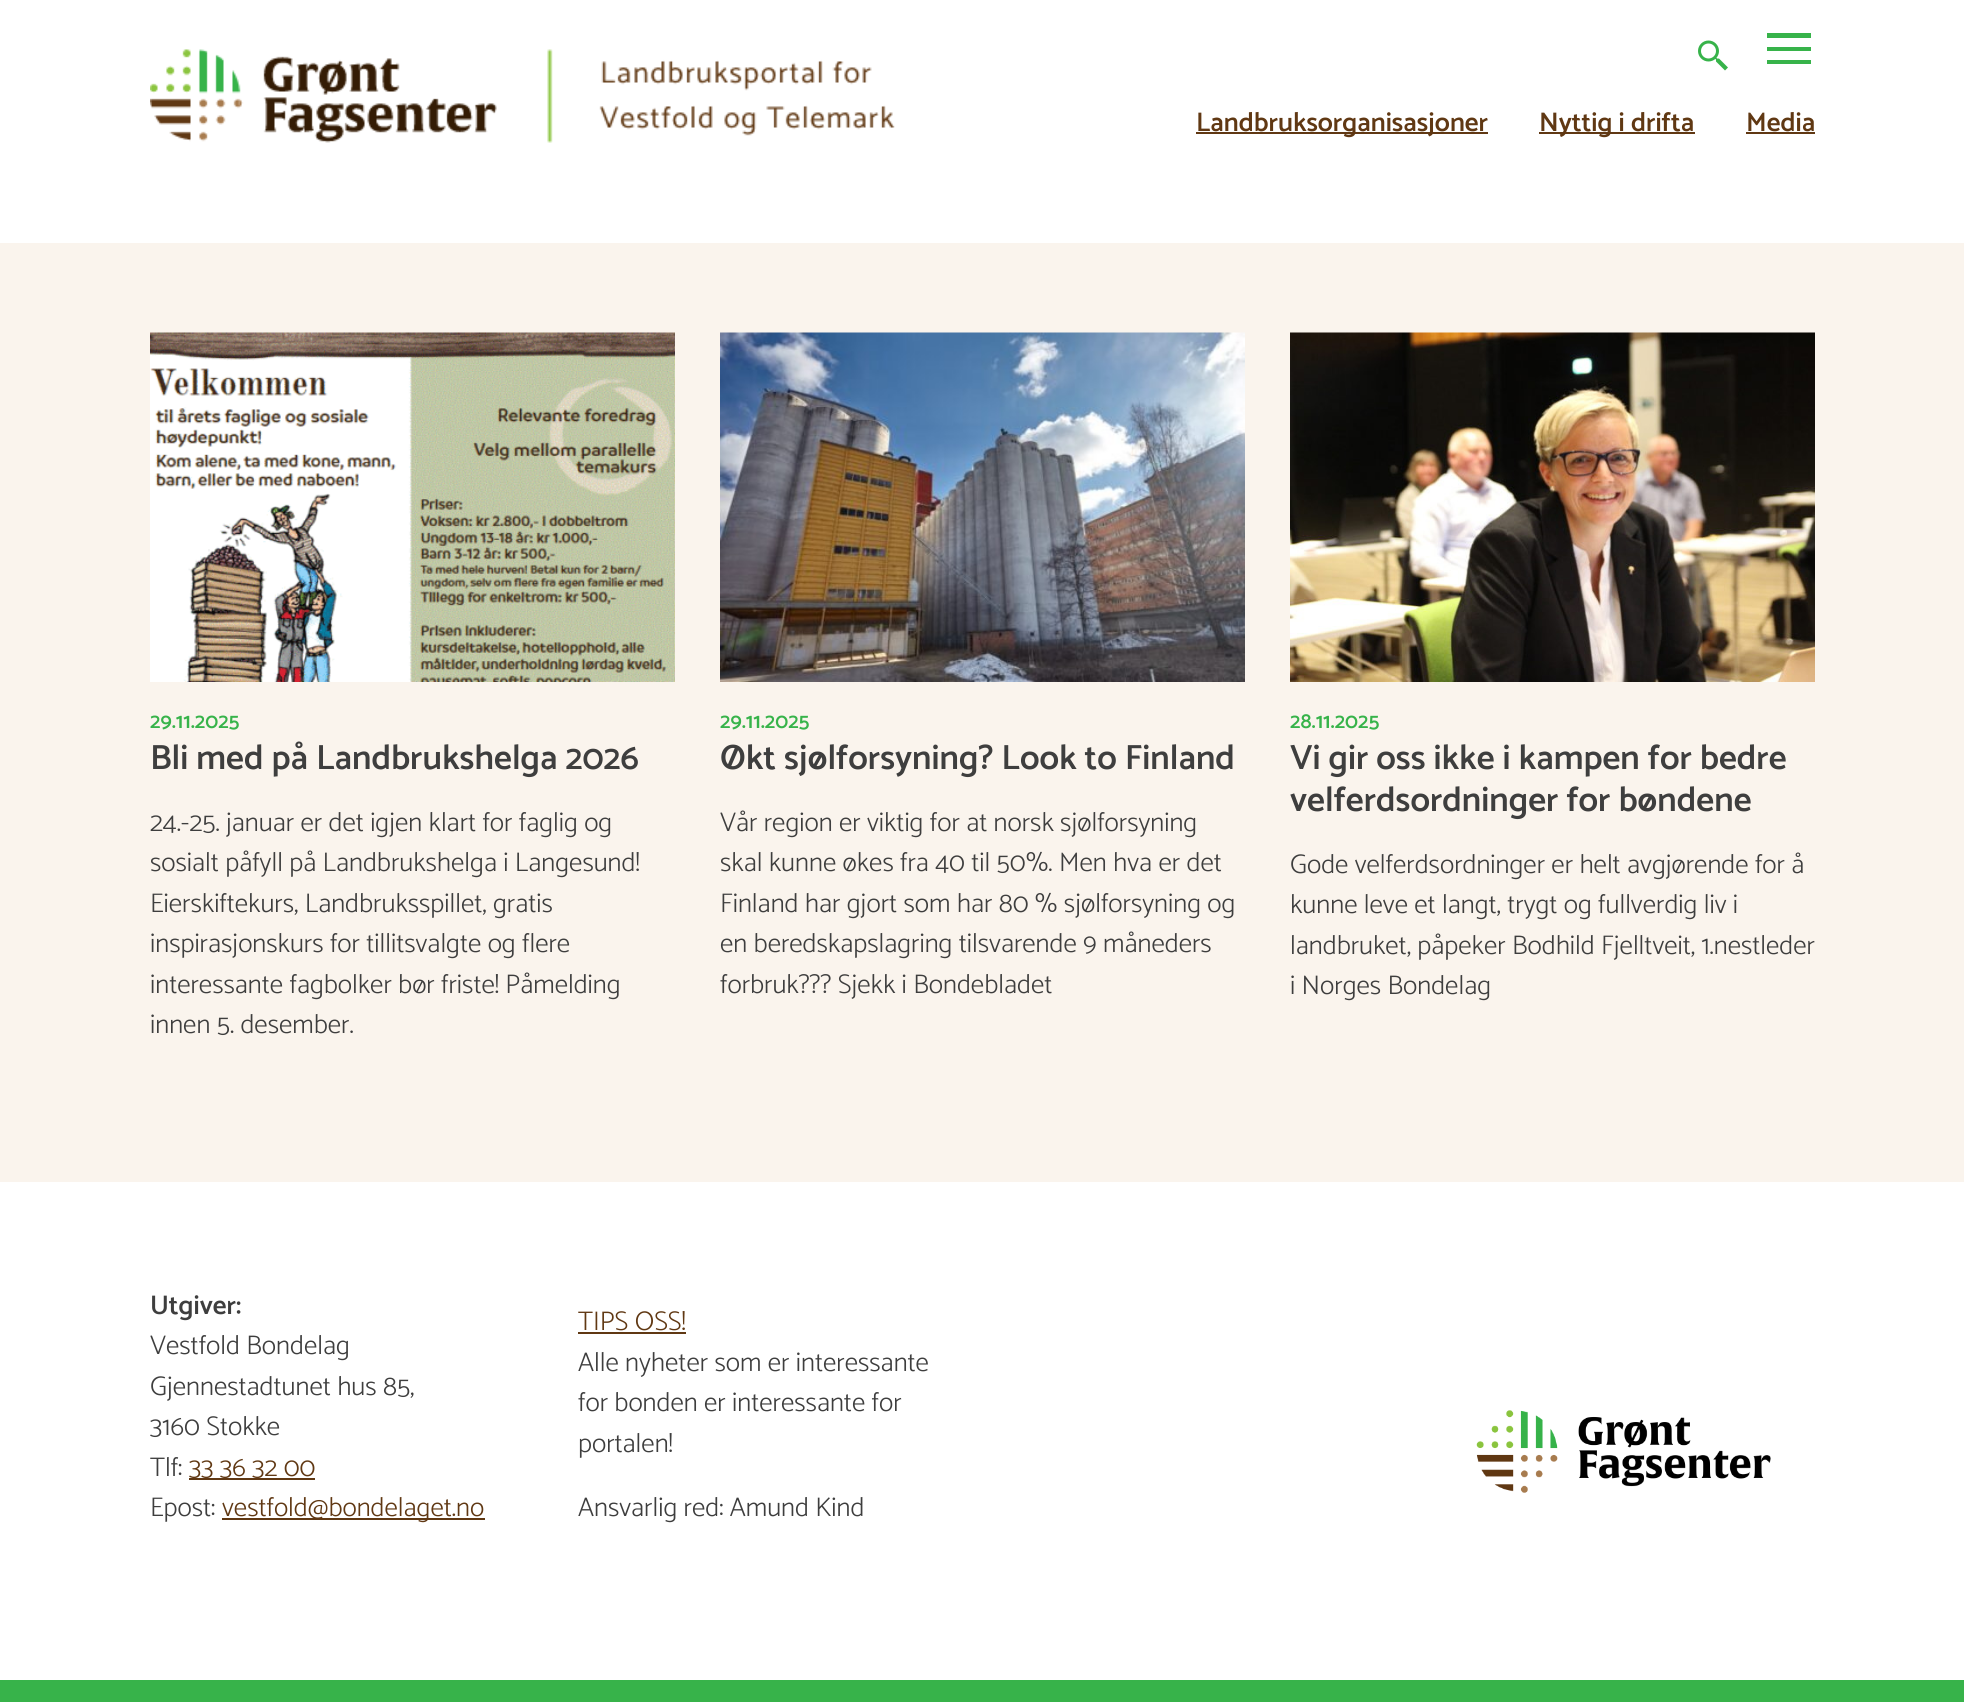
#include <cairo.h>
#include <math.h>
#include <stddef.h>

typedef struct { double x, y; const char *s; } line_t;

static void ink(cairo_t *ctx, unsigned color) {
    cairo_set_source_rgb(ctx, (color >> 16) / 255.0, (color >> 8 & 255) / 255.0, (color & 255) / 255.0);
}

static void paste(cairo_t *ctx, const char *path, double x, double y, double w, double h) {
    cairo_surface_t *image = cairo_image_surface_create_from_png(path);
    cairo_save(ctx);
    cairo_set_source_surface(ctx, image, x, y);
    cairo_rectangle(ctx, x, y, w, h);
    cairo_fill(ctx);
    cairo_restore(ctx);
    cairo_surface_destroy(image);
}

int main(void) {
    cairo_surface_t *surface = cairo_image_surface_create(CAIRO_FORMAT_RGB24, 1964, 1702);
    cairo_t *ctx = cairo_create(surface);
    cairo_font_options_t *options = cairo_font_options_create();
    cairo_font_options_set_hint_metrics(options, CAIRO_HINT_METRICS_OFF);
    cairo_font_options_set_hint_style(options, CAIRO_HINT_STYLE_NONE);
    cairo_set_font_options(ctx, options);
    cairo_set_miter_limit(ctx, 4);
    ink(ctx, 0xFAF4ED);
    cairo_paint(ctx);
    ink(ctx, 0xFFFFFF);
    cairo_rectangle(ctx, 0, 0, 1964, 243);
    cairo_fill(ctx);
    paste(ctx, "media/1.png", 150, 49, 745, 94);
    paste(ctx, "media/2.png", 1698, 40, 30, 31);
    ink(ctx, 0x37B34A);
    cairo_new_path(ctx);
    cairo_move_to(ctx, 1767, 47);
    cairo_line_to(ctx, 1811, 47);
    cairo_line_to(ctx, 1811, 51);
    cairo_line_to(ctx, 1767, 51);
    cairo_close_path(ctx);
    cairo_move_to(ctx, 1767, 33);
    cairo_line_to(ctx, 1811, 33);
    cairo_line_to(ctx, 1811, 38);
    cairo_line_to(ctx, 1767, 38);
    cairo_close_path(ctx);
    cairo_move_to(ctx, 1767, 60);
    cairo_line_to(ctx, 1811, 60);
    cairo_line_to(ctx, 1811, 64);
    cairo_line_to(ctx, 1767, 64);
    cairo_close_path(ctx);
    cairo_fill(ctx);
    ink(ctx, 0x603813);
    cairo_rectangle(ctx, 1196, 132, 292, 2);
    cairo_fill(ctx);
    cairo_select_font_face(ctx, "Catamaran SemiBold", CAIRO_FONT_SLANT_NORMAL, CAIRO_FONT_WEIGHT_NORMAL);
    cairo_set_font_size(ctx, 27);
    cairo_move_to(ctx, 1196, 131);
    cairo_show_text(ctx, "Landbruksorganisasjoner");
    cairo_rectangle(ctx, 1539, 132, 156, 2);
    cairo_fill(ctx);
    cairo_move_to(ctx, 1539, 131);
    cairo_show_text(ctx, "Nyttig i drifta");
    cairo_move_to(ctx, 1746, 131);
    cairo_show_text(ctx, "Media");
    cairo_rectangle(ctx, 1746, 132, 69, 2);
    cairo_fill(ctx);
    paste(ctx, "media/3.png", 150, 332, 525, 350);
    cairo_set_font_size(ctx, 21.5);
    ink(ctx, 0x37B34A);
    cairo_move_to(ctx, 150, 728);
    cairo_show_text(ctx, "29.11.2025");
    cairo_set_font_size(ctx, 35.1);
    ink(ctx, 0x3E3E3E);
    cairo_move_to(ctx, 150, 769);
    cairo_show_text(ctx, "Bli med på Landbrukshelga 2026");
    cairo_select_font_face(ctx, "Catamaran Light", CAIRO_FONT_SLANT_NORMAL, CAIRO_FONT_WEIGHT_NORMAL);
    cairo_set_font_size(ctx, 27);
    {
        static const line_t items[] = {
            {150, 831, "24.-25. januar er det igjen klart for faglig og"},
            {150, 871, "sosialt påfyll på Landbrukshelga i Langesund!"},
            {150, 912, "Eierskiftekurs, Landbruksspillet, gratis"},
            {150, 952, "inspirasjonskurs for tillitsvalgte og flere"},
            {150, 993, "interessante fagbolker bør friste! Påmelding"},
            {150, 1033, "innen 5. desember."},
        };
        for (size_t i = 0; i < sizeof items / sizeof *items; i++) {
            cairo_move_to(ctx, items[i].x, items[i].y);
            cairo_show_text(ctx, items[i].s);
        }
    }
    paste(ctx, "media/4.png", 720, 332, 525, 350);
    cairo_select_font_face(ctx, "Catamaran SemiBold", CAIRO_FONT_SLANT_NORMAL, CAIRO_FONT_WEIGHT_NORMAL);
    cairo_set_font_size(ctx, 21.5);
    ink(ctx, 0x37B34A);
    cairo_move_to(ctx, 720, 728);
    cairo_show_text(ctx, "29.11.2025");
    cairo_set_font_size(ctx, 35.1);
    ink(ctx, 0x3E3E3E);
    cairo_move_to(ctx, 720, 769);
    cairo_show_text(ctx, "Økt sjølforsyning? Look to Finland");
    cairo_select_font_face(ctx, "Catamaran Light", CAIRO_FONT_SLANT_NORMAL, CAIRO_FONT_WEIGHT_NORMAL);
    cairo_set_font_size(ctx, 27);
    {
        static const line_t items[] = {
            {720, 831, "Vår region er viktig for at norsk sjølforsyning"},
            {720, 871, "skal kunne økes fra 40 til 50%. Men hva er det"},
            {720, 912, "Finland har gjort som har 80 % sjølforsyning og"},
            {720, 952, "en beredskapslagring tilsvarende 9 måneders"},
            {720, 993, "forbruk?\077? Sjekk i Bondebladet"},
        };
        for (size_t i = 0; i < sizeof items / sizeof *items; i++) {
            cairo_move_to(ctx, items[i].x, items[i].y);
            cairo_show_text(ctx, items[i].s);
        }
    }
    paste(ctx, "media/5.png", 1290, 332, 525, 350);
    cairo_select_font_face(ctx, "Catamaran SemiBold", CAIRO_FONT_SLANT_NORMAL, CAIRO_FONT_WEIGHT_NORMAL);
    cairo_set_font_size(ctx, 21.5);
    ink(ctx, 0x37B34A);
    cairo_move_to(ctx, 1290, 728);
    cairo_show_text(ctx, "28.11.2025");
    cairo_set_font_size(ctx, 35.1);
    ink(ctx, 0x3E3E3E);
    cairo_move_to(ctx, 1290, 769);
    cairo_show_text(ctx, "Vi gir oss ikke i kampen for bedre");
    cairo_move_to(ctx, 1290, 811);
    cairo_show_text(ctx, "velferdsordninger for bøndene");
    cairo_select_font_face(ctx, "Catamaran Light", CAIRO_FONT_SLANT_NORMAL, CAIRO_FONT_WEIGHT_NORMAL);
    cairo_set_font_size(ctx, 27);
    {
        static const line_t items[] = {
            {1290, 873, "Gode velferdsordninger er helt avgjørende for å"},
            {1290, 913, "kunne leve et langt, trygt og fullverdig liv i"},
            {1290, 954, "landbruket, påpeker Bodhild Fjelltveit, 1.nestleder"},
            {1290, 994, "i Norges Bondelag"},
        };
        for (size_t i = 0; i < sizeof items / sizeof *items; i++) {
            cairo_move_to(ctx, items[i].x, items[i].y);
            cairo_show_text(ctx, items[i].s);
        }
    }
    ink(ctx, 0xFFFFFF);
    cairo_rectangle(ctx, 0, 1182, 1964, 498);
    cairo_fill(ctx);
    ink(ctx, 0x37B34A);
    cairo_rectangle(ctx, 0, 1680, 1964, 22);
    cairo_fill(ctx);
    cairo_select_font_face(ctx, "Catamaran SemiBold", CAIRO_FONT_SLANT_NORMAL, CAIRO_FONT_WEIGHT_NORMAL);
    ink(ctx, 0x3E3E3E);
    cairo_move_to(ctx, 150, 1314);
    cairo_show_text(ctx, "Utgiver:");
    cairo_select_font_face(ctx, "Catamaran Light", CAIRO_FONT_SLANT_NORMAL, CAIRO_FONT_WEIGHT_NORMAL);
    {
        static const line_t items[] = {
            {150, 1354, "Vestfold Bondelag"},
            {150, 1395, "Gjennestadtunet hus 85,"},
            {150, 1435, "3160 Stokke"},
            {150, 1476, "Tlf:"},
        };
        for (size_t i = 0; i < sizeof items / sizeof *items; i++) {
            cairo_move_to(ctx, items[i].x, items[i].y);
            cairo_show_text(ctx, items[i].s);
        }
    }
    ink(ctx, 0x603813);
    cairo_rectangle(ctx, 189, 1478, 126, 2);
    cairo_fill(ctx);
    cairo_move_to(ctx, 189, 1476);
    cairo_show_text(ctx, "33 36 32 00");
    ink(ctx, 0x3E3E3E);
    cairo_move_to(ctx, 150, 1516);
    cairo_show_text(ctx, "Epost:");
    ink(ctx, 0x603813);
    cairo_rectangle(ctx, 222, 1518, 263, 2);
    cairo_fill(ctx);
    cairo_move_to(ctx, 222, 1516);
    cairo_show_text(ctx, "vestfold@bondelaget.no");
    cairo_move_to(ctx, 578, 1330);
    cairo_show_text(ctx, "TIPS OSS!");
    cairo_rectangle(ctx, 578, 1332, 108, 2);
    cairo_fill(ctx);
    ink(ctx, 0x3E3E3E);
    {
        static const line_t items[] = {
            {578, 1371, "Alle nyheter som er interessante"},
            {578, 1411, "for bonden er interessante for"},
            {578, 1452, "portalen!"},
            {578, 1516, "Ansvarlig red: Amund Kind"},
        };
        for (size_t i = 0; i < sizeof items / sizeof *items; i++) {
            cairo_move_to(ctx, items[i].x, items[i].y);
            cairo_show_text(ctx, items[i].s);
        }
    }
    paste(ctx, "media/6.png", 1476, 1410, 295, 83);
    cairo_surface_write_to_png(surface, "image.png");
    cairo_font_options_destroy(options);
    cairo_destroy(ctx);
    cairo_surface_destroy(surface);
    return 0;
}
